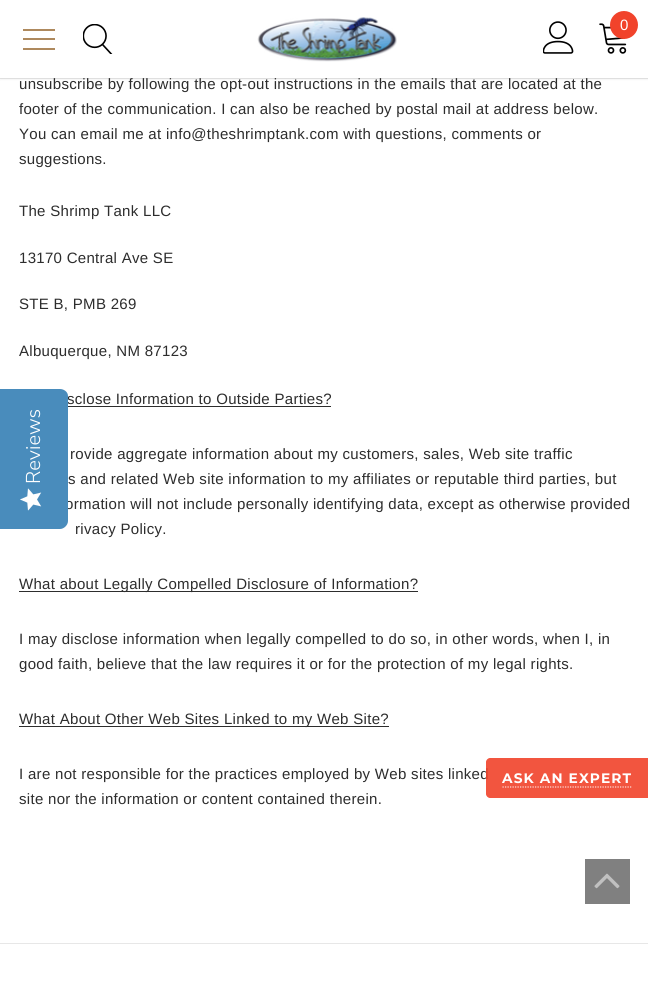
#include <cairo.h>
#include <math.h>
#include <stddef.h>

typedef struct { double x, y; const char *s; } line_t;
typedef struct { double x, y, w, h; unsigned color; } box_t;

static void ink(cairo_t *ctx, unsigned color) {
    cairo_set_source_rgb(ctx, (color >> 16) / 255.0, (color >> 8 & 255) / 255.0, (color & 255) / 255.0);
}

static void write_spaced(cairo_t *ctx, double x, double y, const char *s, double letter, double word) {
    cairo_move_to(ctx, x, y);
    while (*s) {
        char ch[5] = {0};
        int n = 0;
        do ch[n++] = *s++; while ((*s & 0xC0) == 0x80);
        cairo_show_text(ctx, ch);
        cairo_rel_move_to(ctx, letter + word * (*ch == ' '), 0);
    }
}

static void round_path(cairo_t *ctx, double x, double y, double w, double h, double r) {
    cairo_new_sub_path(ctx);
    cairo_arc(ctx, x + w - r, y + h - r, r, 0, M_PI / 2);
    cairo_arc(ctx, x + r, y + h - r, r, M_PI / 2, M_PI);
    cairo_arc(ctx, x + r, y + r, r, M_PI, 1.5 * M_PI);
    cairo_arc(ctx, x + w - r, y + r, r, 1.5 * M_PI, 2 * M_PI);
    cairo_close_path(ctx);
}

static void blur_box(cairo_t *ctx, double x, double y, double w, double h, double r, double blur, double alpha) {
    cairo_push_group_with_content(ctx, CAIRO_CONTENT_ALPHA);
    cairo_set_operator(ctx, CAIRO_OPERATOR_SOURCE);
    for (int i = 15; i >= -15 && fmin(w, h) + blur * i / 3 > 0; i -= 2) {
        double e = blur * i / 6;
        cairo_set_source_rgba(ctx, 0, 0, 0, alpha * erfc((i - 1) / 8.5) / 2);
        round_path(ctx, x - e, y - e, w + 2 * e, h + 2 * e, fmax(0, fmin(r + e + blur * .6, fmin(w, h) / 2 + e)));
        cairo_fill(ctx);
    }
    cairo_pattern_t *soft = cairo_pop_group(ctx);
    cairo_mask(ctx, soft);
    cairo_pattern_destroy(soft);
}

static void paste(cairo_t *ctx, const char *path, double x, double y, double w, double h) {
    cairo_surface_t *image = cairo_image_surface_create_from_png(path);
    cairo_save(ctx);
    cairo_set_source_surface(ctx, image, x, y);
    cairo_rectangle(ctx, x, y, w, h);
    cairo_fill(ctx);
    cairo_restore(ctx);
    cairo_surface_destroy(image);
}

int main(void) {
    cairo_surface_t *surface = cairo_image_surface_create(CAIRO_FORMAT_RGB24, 648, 985);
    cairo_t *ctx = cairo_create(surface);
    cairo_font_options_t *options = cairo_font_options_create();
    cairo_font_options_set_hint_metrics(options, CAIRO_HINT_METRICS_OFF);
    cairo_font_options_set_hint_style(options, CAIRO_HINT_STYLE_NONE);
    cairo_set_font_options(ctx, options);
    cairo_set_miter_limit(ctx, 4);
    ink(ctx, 0xFFFFFF);
    cairo_paint(ctx);
    ink(ctx, 0x000000);
    blur_box(ctx, 0, 1, 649, 78, 0, 1, 0.1);
    cairo_select_font_face(ctx, "Arimo", CAIRO_FONT_SLANT_NORMAL, CAIRO_FONT_WEIGHT_NORMAL);
    cairo_set_font_size(ctx, 15);
    ink(ctx, 0x2D2D2D);
    write_spaced(ctx, 19, 89, "unsubscribe by following the opt-out instructions in the emails that are located at the", 0.3, 0);
    cairo_rectangle(ctx, -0.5, -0.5, 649, 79);
    cairo_set_source_rgba(ctx, 0, 0, 0, 0.06);
    cairo_set_line_width(ctx, 1);
    cairo_stroke(ctx);
    {
        static const box_t items[] = {
            {0, 0, 648, 78, 0xFFFFFF},
            {23, 29, 32, 2, 0xAE895D},
            {23, 48, 32, 2, 0xAE895D},
            {23, 38, 32, 2, 0xAE895D},
        };
        for (size_t i = 0; i < sizeof items / sizeof *items; i++) {
            ink(ctx, items[i].color);
            cairo_rectangle(ctx, items[i].x, items[i].y, items[i].w, items[i].h);
            cairo_fill(ctx);
        }
    }
    paste(ctx, "media/1.png", 257, 17, 140, 45);
    paste(ctx, "media/2.png", 543, 21, 31, 33);
    paste(ctx, "media/3.png", 83, 24, 30, 30);
    paste(ctx, "media/4.png", 599, 23, 28, 31);
    ink(ctx, 0xF1432B);
    cairo_arc(ctx, 624, 25, 14, 0, 2 * M_PI);
    cairo_fill(ctx);
    ink(ctx, 0xFFFFFF);
    cairo_move_to(ctx, 620, 30);
    cairo_show_text(ctx, "0");
    ink(ctx, 0x2D2D2D);
    {
        static const line_t items[] = {
            {19, 114, "footer of the communication. I can also be reached by postal mail at address below."},
            {19, 139, "You can email me at info@theshrimptank.com with questions, comments or"},
            {19, 164, "suggestions."},
            {19, 216, "The Shrimp Tank LLC"},
            {19, 263, "13170 Central Ave SE"},
            {19, 309, "STE B, PMB 269"},
            {19, 356, "Albuquerque, NM 87123"},
            {67, 404, "sclose Information to Outside Parties?"},
        };
        for (size_t i = 0; i < sizeof items / sizeof *items; i++) {
            write_spaced(ctx, items[i].x, items[i].y, items[i].s, 0.3, 0);
        }
    }
    cairo_rectangle(ctx, 68, 406, 263, 1);
    cairo_fill(ctx);
    {
        static const line_t items[] = {
            {70, 459, "rovide aggregate information about my customers, sales, Web site traffic"},
            {68, 484, "s and related Web site information to my affiliates or reputable third parties, but"},
            {65, 509, "ormation will not include personally identifying data, except as otherwise provided"},
            {75, 534, "rivacy Policy."},
        };
        for (size_t i = 0; i < sizeof items / sizeof *items; i++) {
            write_spaced(ctx, items[i].x, items[i].y, items[i].s, 0.3, 0);
        }
    }
    cairo_rectangle(ctx, 19, 591, 399, 1);
    cairo_fill(ctx);
    {
        static const line_t items[] = {
            {19, 589, "What about Legally Compelled Disclosure of Information?"},
            {19, 644, "I may disclose information when legally compelled to do so, in other words, when I, in"},
            {19, 669, "good faith, believe that the law requires it or for the protection of my legal rights."},
        };
        for (size_t i = 0; i < sizeof items / sizeof *items; i++) {
            write_spaced(ctx, items[i].x, items[i].y, items[i].s, 0.3, 0);
        }
    }
    cairo_rectangle(ctx, 19, 726, 370, 1);
    cairo_fill(ctx);
    {
        static const line_t items[] = {
            {19, 724, "What About Other Web Sites Linked to my Web Site?"},
            {19, 779, "I are not responsible for the practices employed by Web sites linked"},
            {19, 804, "site nor the information or content contained therein."},
        };
        for (size_t i = 0; i < sizeof items / sizeof *items; i++) {
            write_spaced(ctx, items[i].x, items[i].y, items[i].s, 0.3, 0);
        }
    }
    ink(ctx, 0x808080);
    cairo_rectangle(ctx, 585, 859, 45, 45);
    cairo_fill(ctx);
    paste(ctx, "media/5.png", 594, 873, 26, 16);
    ink(ctx, 0xE7E7E7);
    cairo_rectangle(ctx, 0, 943, 648, 1);
    cairo_fill(ctx);
    cairo_set_source_rgba(ctx, 0.945, 0.263, 0.169, 0.9);
    cairo_new_path(ctx);
    cairo_move_to(ctx, 490, 758);
    cairo_line_to(ctx, 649, 758);
    cairo_line_to(ctx, 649, 798);
    cairo_line_to(ctx, 490, 798);
    cairo_curve_to(ctx, 488, 798, 486, 796, 486, 794);
    cairo_line_to(ctx, 486, 762);
    cairo_curve_to(ctx, 486, 760, 488, 758, 490, 758);
    cairo_close_path(ctx);
    cairo_fill(ctx);
    cairo_select_font_face(ctx, "Montserrat", CAIRO_FONT_SLANT_NORMAL, CAIRO_FONT_WEIGHT_BOLD);
    cairo_set_font_size(ctx, 13.75);
    ink(ctx, 0xFFFFFF);
    write_spaced(ctx, 502, 783, "ASK AN EXPERT", 1.1, 0);
    cairo_new_path(ctx);
    cairo_move_to(ctx, 502.5, 787);
    cairo_line_to(ctx, 632.5, 787);
    ink(ctx, 0xFCDDD9);
    cairo_set_line_width(ctx, 1.2);
    cairo_set_dash(ctx, (double[]){1.25, 1.25}, 2, 0);
    cairo_stroke(ctx);
    ink(ctx, 0x498CBC);
    cairo_new_path(ctx);
    cairo_move_to(ctx, 0, 529);
    cairo_line_to(ctx, 0, 389);
    cairo_line_to(ctx, 60, 389);
    cairo_curve_to(ctx, 64, 389, 68, 392, 68, 396);
    cairo_line_to(ctx, 68, 521);
    cairo_curve_to(ctx, 68, 525, 64, 529, 60, 529);
    cairo_close_path(ctx);
    cairo_fill(ctx);
    cairo_select_font_face(ctx, "Nunito Sans Light", CAIRO_FONT_SLANT_NORMAL, CAIRO_FONT_WEIGHT_NORMAL);
    cairo_set_font_size(ctx, 20);
    ink(ctx, 0xFFFFFF);
    cairo_save(ctx);
    cairo_translate(ctx, 40, 484);
    cairo_rotate(ctx, -90 * M_PI / 180);
    cairo_move_to(ctx, 0, 0);
    cairo_show_text(ctx, "Reviews");
    cairo_restore(ctx);
    paste(ctx, "media/6.png", 20, 488, 22, 23);
    cairo_surface_write_to_png(surface, "image.png");
    cairo_font_options_destroy(options);
    cairo_destroy(ctx);
    cairo_surface_destroy(surface);
    return 0;
}
